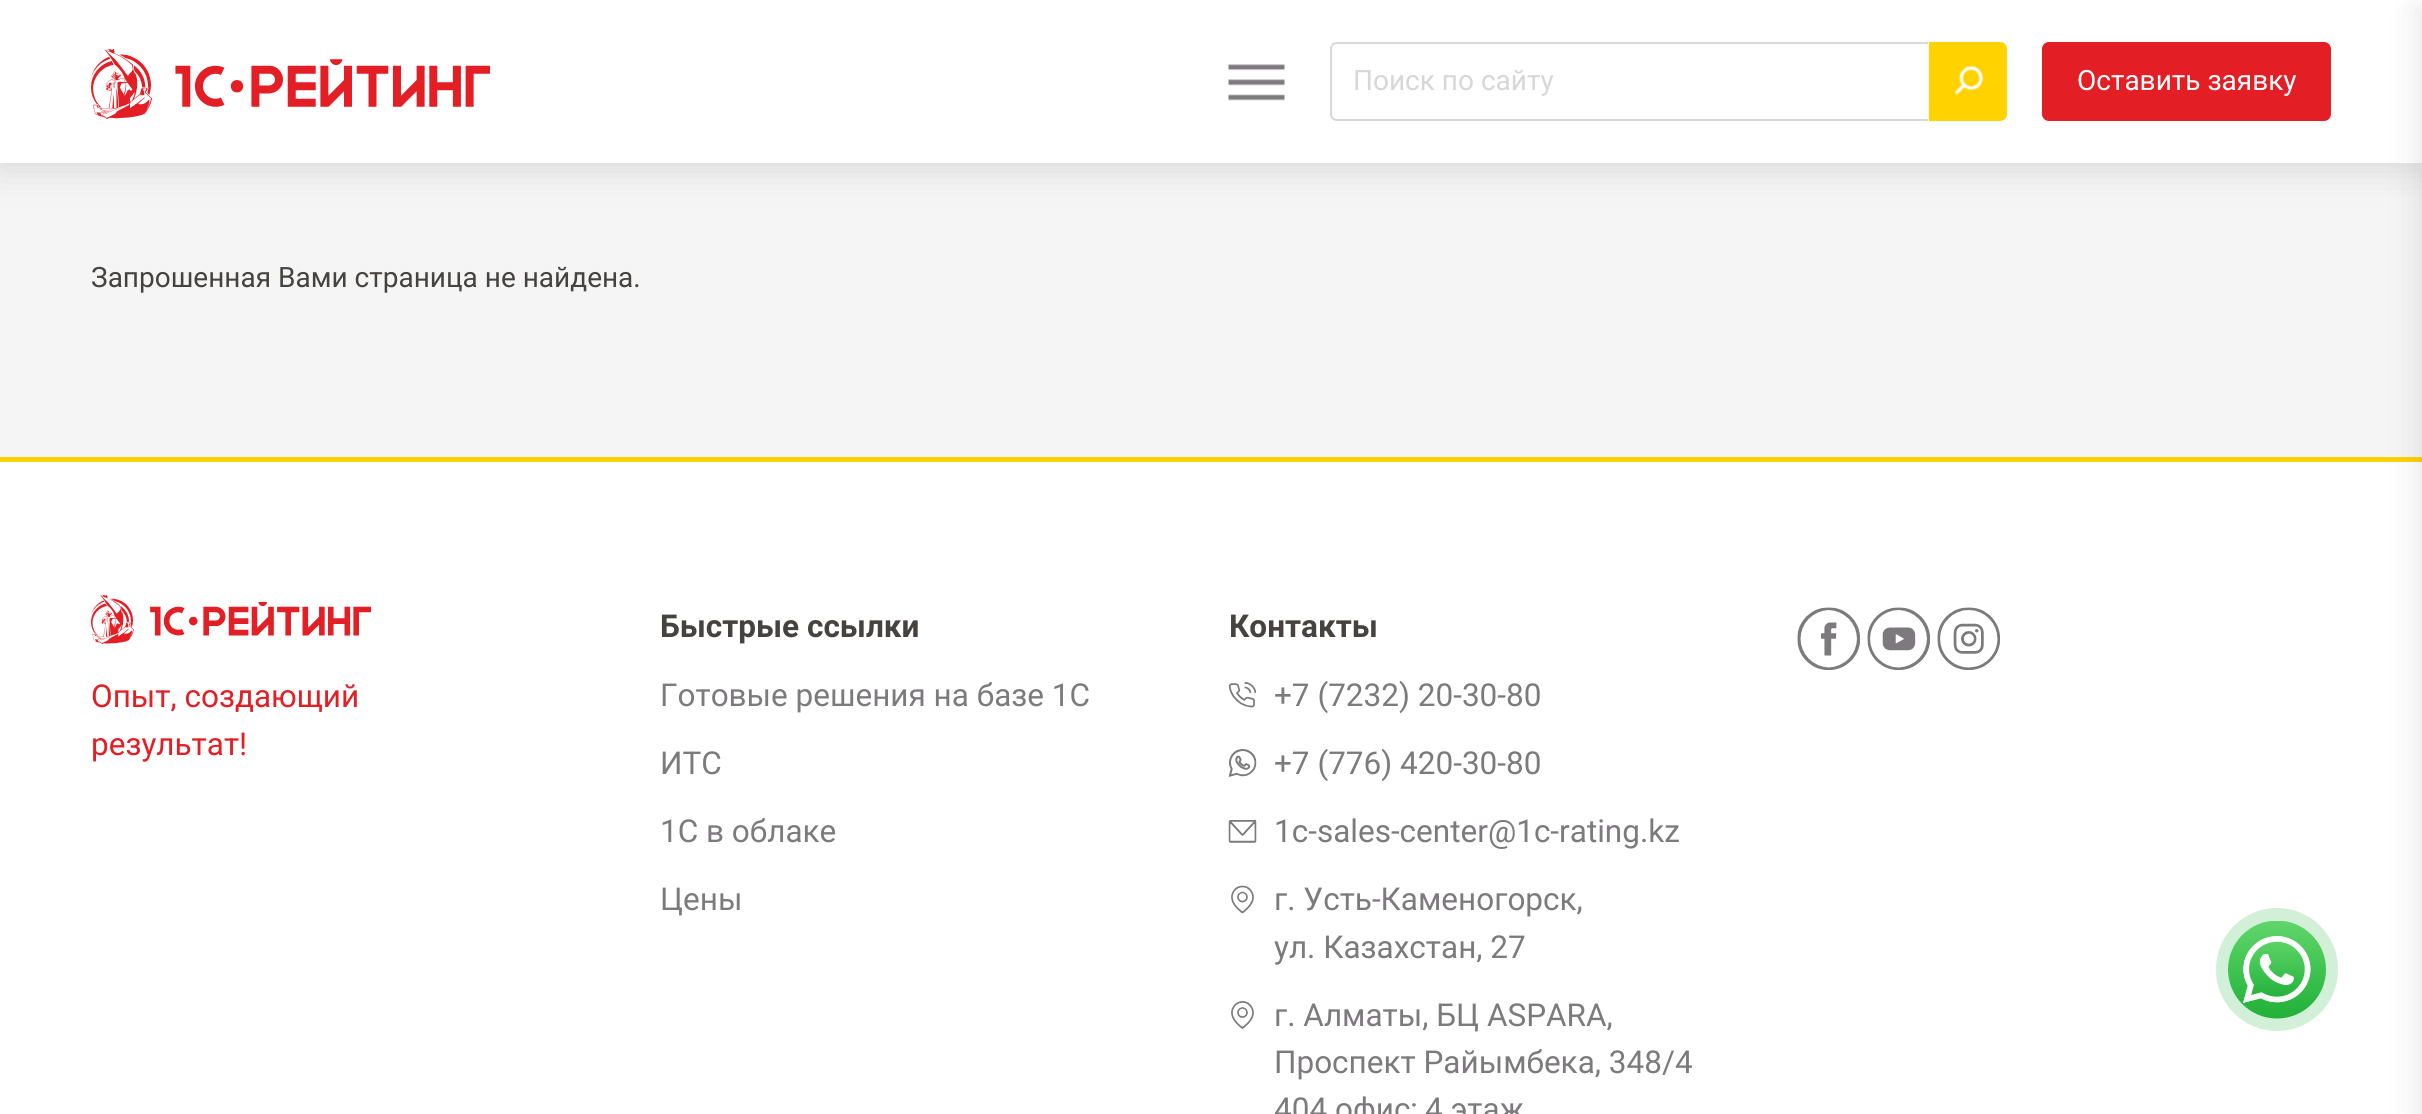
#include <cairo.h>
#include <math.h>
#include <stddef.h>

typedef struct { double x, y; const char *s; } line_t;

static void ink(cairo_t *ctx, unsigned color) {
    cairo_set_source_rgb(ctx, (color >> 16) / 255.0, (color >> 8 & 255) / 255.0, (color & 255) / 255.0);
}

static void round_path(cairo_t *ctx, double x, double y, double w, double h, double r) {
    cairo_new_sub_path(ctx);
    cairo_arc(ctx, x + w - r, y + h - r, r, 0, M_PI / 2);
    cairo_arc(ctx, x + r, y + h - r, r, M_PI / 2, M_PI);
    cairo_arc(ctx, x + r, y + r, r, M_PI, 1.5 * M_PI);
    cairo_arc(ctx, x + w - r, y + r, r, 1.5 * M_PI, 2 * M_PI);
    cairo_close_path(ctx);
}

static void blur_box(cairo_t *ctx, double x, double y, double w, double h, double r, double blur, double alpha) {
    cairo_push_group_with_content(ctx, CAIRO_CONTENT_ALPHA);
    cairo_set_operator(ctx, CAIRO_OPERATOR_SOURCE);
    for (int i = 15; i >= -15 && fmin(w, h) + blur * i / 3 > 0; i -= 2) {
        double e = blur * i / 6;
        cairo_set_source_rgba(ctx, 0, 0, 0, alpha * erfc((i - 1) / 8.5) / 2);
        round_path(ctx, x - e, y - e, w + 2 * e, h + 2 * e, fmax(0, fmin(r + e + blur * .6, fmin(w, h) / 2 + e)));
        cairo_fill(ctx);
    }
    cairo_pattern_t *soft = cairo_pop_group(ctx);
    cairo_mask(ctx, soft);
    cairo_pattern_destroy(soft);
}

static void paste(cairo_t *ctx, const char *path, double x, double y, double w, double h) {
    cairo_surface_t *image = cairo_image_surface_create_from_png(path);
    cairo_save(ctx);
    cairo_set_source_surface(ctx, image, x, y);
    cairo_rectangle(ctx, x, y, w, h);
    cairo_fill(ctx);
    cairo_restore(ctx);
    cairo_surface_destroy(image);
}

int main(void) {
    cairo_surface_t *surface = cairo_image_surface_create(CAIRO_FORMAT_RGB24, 2422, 1114);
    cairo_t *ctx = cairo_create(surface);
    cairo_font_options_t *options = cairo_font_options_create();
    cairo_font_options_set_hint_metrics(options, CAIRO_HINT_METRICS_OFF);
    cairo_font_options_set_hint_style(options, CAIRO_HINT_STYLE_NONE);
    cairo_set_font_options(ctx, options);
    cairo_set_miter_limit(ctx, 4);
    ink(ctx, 0xF5F5F5);
    cairo_paint(ctx);
    ink(ctx, 0x3C3C3C);
    blur_box(ctx, 0, 7, 2422, 163, 0, 17.5, 0.15);
    ink(ctx, 0xFFFFFF);
    cairo_rectangle(ctx, 0, 0, 2422, 163);
    cairo_fill(ctx);
    paste(ctx, "media/1.png", 91, 49, 399, 70);
    paste(ctx, "media/2.png", 1228, 64, 57, 37);
    ink(ctx, 0xD7D7D7);
    cairo_set_fill_rule(ctx, CAIRO_FILL_RULE_EVEN_ODD);
    cairo_new_path(ctx);
    cairo_move_to(ctx, 1337, 42);
    cairo_line_to(ctx, 1928, 42);
    cairo_line_to(ctx, 1928, 121);
    cairo_line_to(ctx, 1337, 121);
    cairo_curve_to(ctx, 1333, 121, 1330, 118, 1330, 114);
    cairo_line_to(ctx, 1330, 49);
    cairo_curve_to(ctx, 1330, 45, 1333, 42, 1337, 42);
    cairo_close_path(ctx);
    cairo_move_to(ctx, 1337, 44);
    cairo_line_to(ctx, 1928, 44);
    cairo_line_to(ctx, 1928, 119);
    cairo_line_to(ctx, 1337, 119);
    cairo_curve_to(ctx, 1334, 119, 1332, 117, 1332, 114);
    cairo_line_to(ctx, 1332, 49);
    cairo_curve_to(ctx, 1332, 46, 1334, 44, 1337, 44);
    cairo_close_path(ctx);
    cairo_fill(ctx);
    cairo_select_font_face(ctx, "Roboto", CAIRO_FONT_SLANT_NORMAL, CAIRO_FONT_WEIGHT_NORMAL);
    cairo_set_font_size(ctx, 28);
    cairo_move_to(ctx, 1353, 90);
    cairo_show_text(ctx, "Поиск по сайту");
    ink(ctx, 0xFFD200);
    cairo_new_path(ctx);
    cairo_move_to(ctx, 1930, 43);
    cairo_line_to(ctx, 2000, 43);
    cairo_curve_to(ctx, 2003.5, 43, 2006, 45.5, 2006, 49);
    cairo_line_to(ctx, 2006, 114);
    cairo_curve_to(ctx, 2006, 117.5, 2003.5, 120, 2000, 120);
    cairo_line_to(ctx, 1930, 120);
    cairo_close_path(ctx);
    cairo_fill_preserve(ctx);
    cairo_stroke(ctx);
    paste(ctx, "media/3.png", 1954, 66, 29, 29);
    ink(ctx, 0xE31E24);
    round_path(ctx, 2043, 43, 287, 77, 6);
    cairo_fill_preserve(ctx);
    cairo_stroke(ctx);
    ink(ctx, 0xFFFFFF);
    cairo_move_to(ctx, 2077, 90);
    cairo_show_text(ctx, "Оставить заявку");
    cairo_rectangle(ctx, 0, 462, 2422, 652);
    cairo_fill(ctx);
    ink(ctx, 0xFFD200);
    cairo_rectangle(ctx, 0, 457, 2422, 5);
    cairo_fill(ctx);
    ink(ctx, 0x3C3C3C);
    blur_box(ctx, 2422, 7, 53, 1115, 0, 17.5, 0.15);
    ink(ctx, 0x454240);
    cairo_move_to(ctx, 91, 287);
    cairo_show_text(ctx, "Запрошенная Вами страница не найдена.");
    paste(ctx, "media/4.png", 91, 595, 280, 49);
    cairo_set_font_size(ctx, 31.5);
    ink(ctx, 0xE31E24);
    cairo_move_to(ctx, 91, 707);
    cairo_show_text(ctx, "Опыт, создающий");
    cairo_move_to(ctx, 91, 755);
    cairo_show_text(ctx, "результат!");
    cairo_select_font_face(ctx, "Roboto", CAIRO_FONT_SLANT_NORMAL, CAIRO_FONT_WEIGHT_BOLD);
    ink(ctx, 0x454240);
    cairo_move_to(ctx, 660, 637);
    cairo_show_text(ctx, "Быстрые ссылки");
    cairo_select_font_face(ctx, "Roboto", CAIRO_FONT_SLANT_NORMAL, CAIRO_FONT_WEIGHT_NORMAL);
    ink(ctx, 0x7D7A7D);
    {
        static const line_t items[] = {
            {660, 706, "Готовые решения на базе 1С"},
            {660, 774, "ИТС"},
            {660, 842, "1С в облаке"},
            {660, 910, "Цены"},
        };
        for (size_t i = 0; i < sizeof items / sizeof *items; i++) {
            cairo_move_to(ctx, items[i].x, items[i].y);
            cairo_show_text(ctx, items[i].s);
        }
    }
    cairo_select_font_face(ctx, "Roboto", CAIRO_FONT_SLANT_NORMAL, CAIRO_FONT_WEIGHT_BOLD);
    ink(ctx, 0x454240);
    cairo_move_to(ctx, 1229, 637);
    cairo_show_text(ctx, "Контакты");
    paste(ctx, "media/5.png", 1228, 682, 29, 26);
    cairo_select_font_face(ctx, "Roboto", CAIRO_FONT_SLANT_NORMAL, CAIRO_FONT_WEIGHT_NORMAL);
    ink(ctx, 0x7D7A7D);
    cairo_move_to(ctx, 1274, 706);
    cairo_show_text(ctx, "+7 (7232) 20-30-80");
    paste(ctx, "media/6.png", 1228, 749, 29, 28);
    cairo_move_to(ctx, 1274, 774);
    cairo_show_text(ctx, "+7 (776) 420-30-80");
    paste(ctx, "media/7.png", 1228, 819, 29, 24);
    cairo_move_to(ctx, 1274, 842);
    cairo_show_text(ctx, "1c-sales-center@1c-rating.kz");
    paste(ctx, "media/8.png", 1231, 885, 23, 29);
    cairo_move_to(ctx, 1274, 910);
    cairo_show_text(ctx, "г. Усть-Каменогорск,");
    cairo_move_to(ctx, 1274, 958);
    cairo_show_text(ctx, "ул. Казахстан, 27");
    paste(ctx, "media/9.png", 1231, 1001, 23, 28);
    {
        static const line_t items[] = {
            {1274, 1026, "г. Алматы, БЦ ASPARA,"},
            {1274, 1073, "Проспект Райымбека, 348/4"},
            {1274, 1120, "404 офис; 4 этаж"},
        };
        for (size_t i = 0; i < sizeof items / sizeof *items; i++) {
            cairo_move_to(ctx, items[i].x, items[i].y);
            cairo_show_text(ctx, items[i].s);
        }
    }
    paste(ctx, "media/10.png", 1797, 607, 63, 63);
    paste(ctx, "media/11.png", 1867, 607, 63, 63);
    paste(ctx, "media/12.png", 1937, 607, 63, 63);
    ink(ctx, 0xD2EFD7);
    round_path(ctx, 2216, 908, 122, 123, 61);
    cairo_fill(ctx);
    paste(ctx, "media/13.png", 2228, 921, 98, 98);
    cairo_surface_write_to_png(surface, "image.png");
    cairo_font_options_destroy(options);
    cairo_destroy(ctx);
    cairo_surface_destroy(surface);
    return 0;
}
